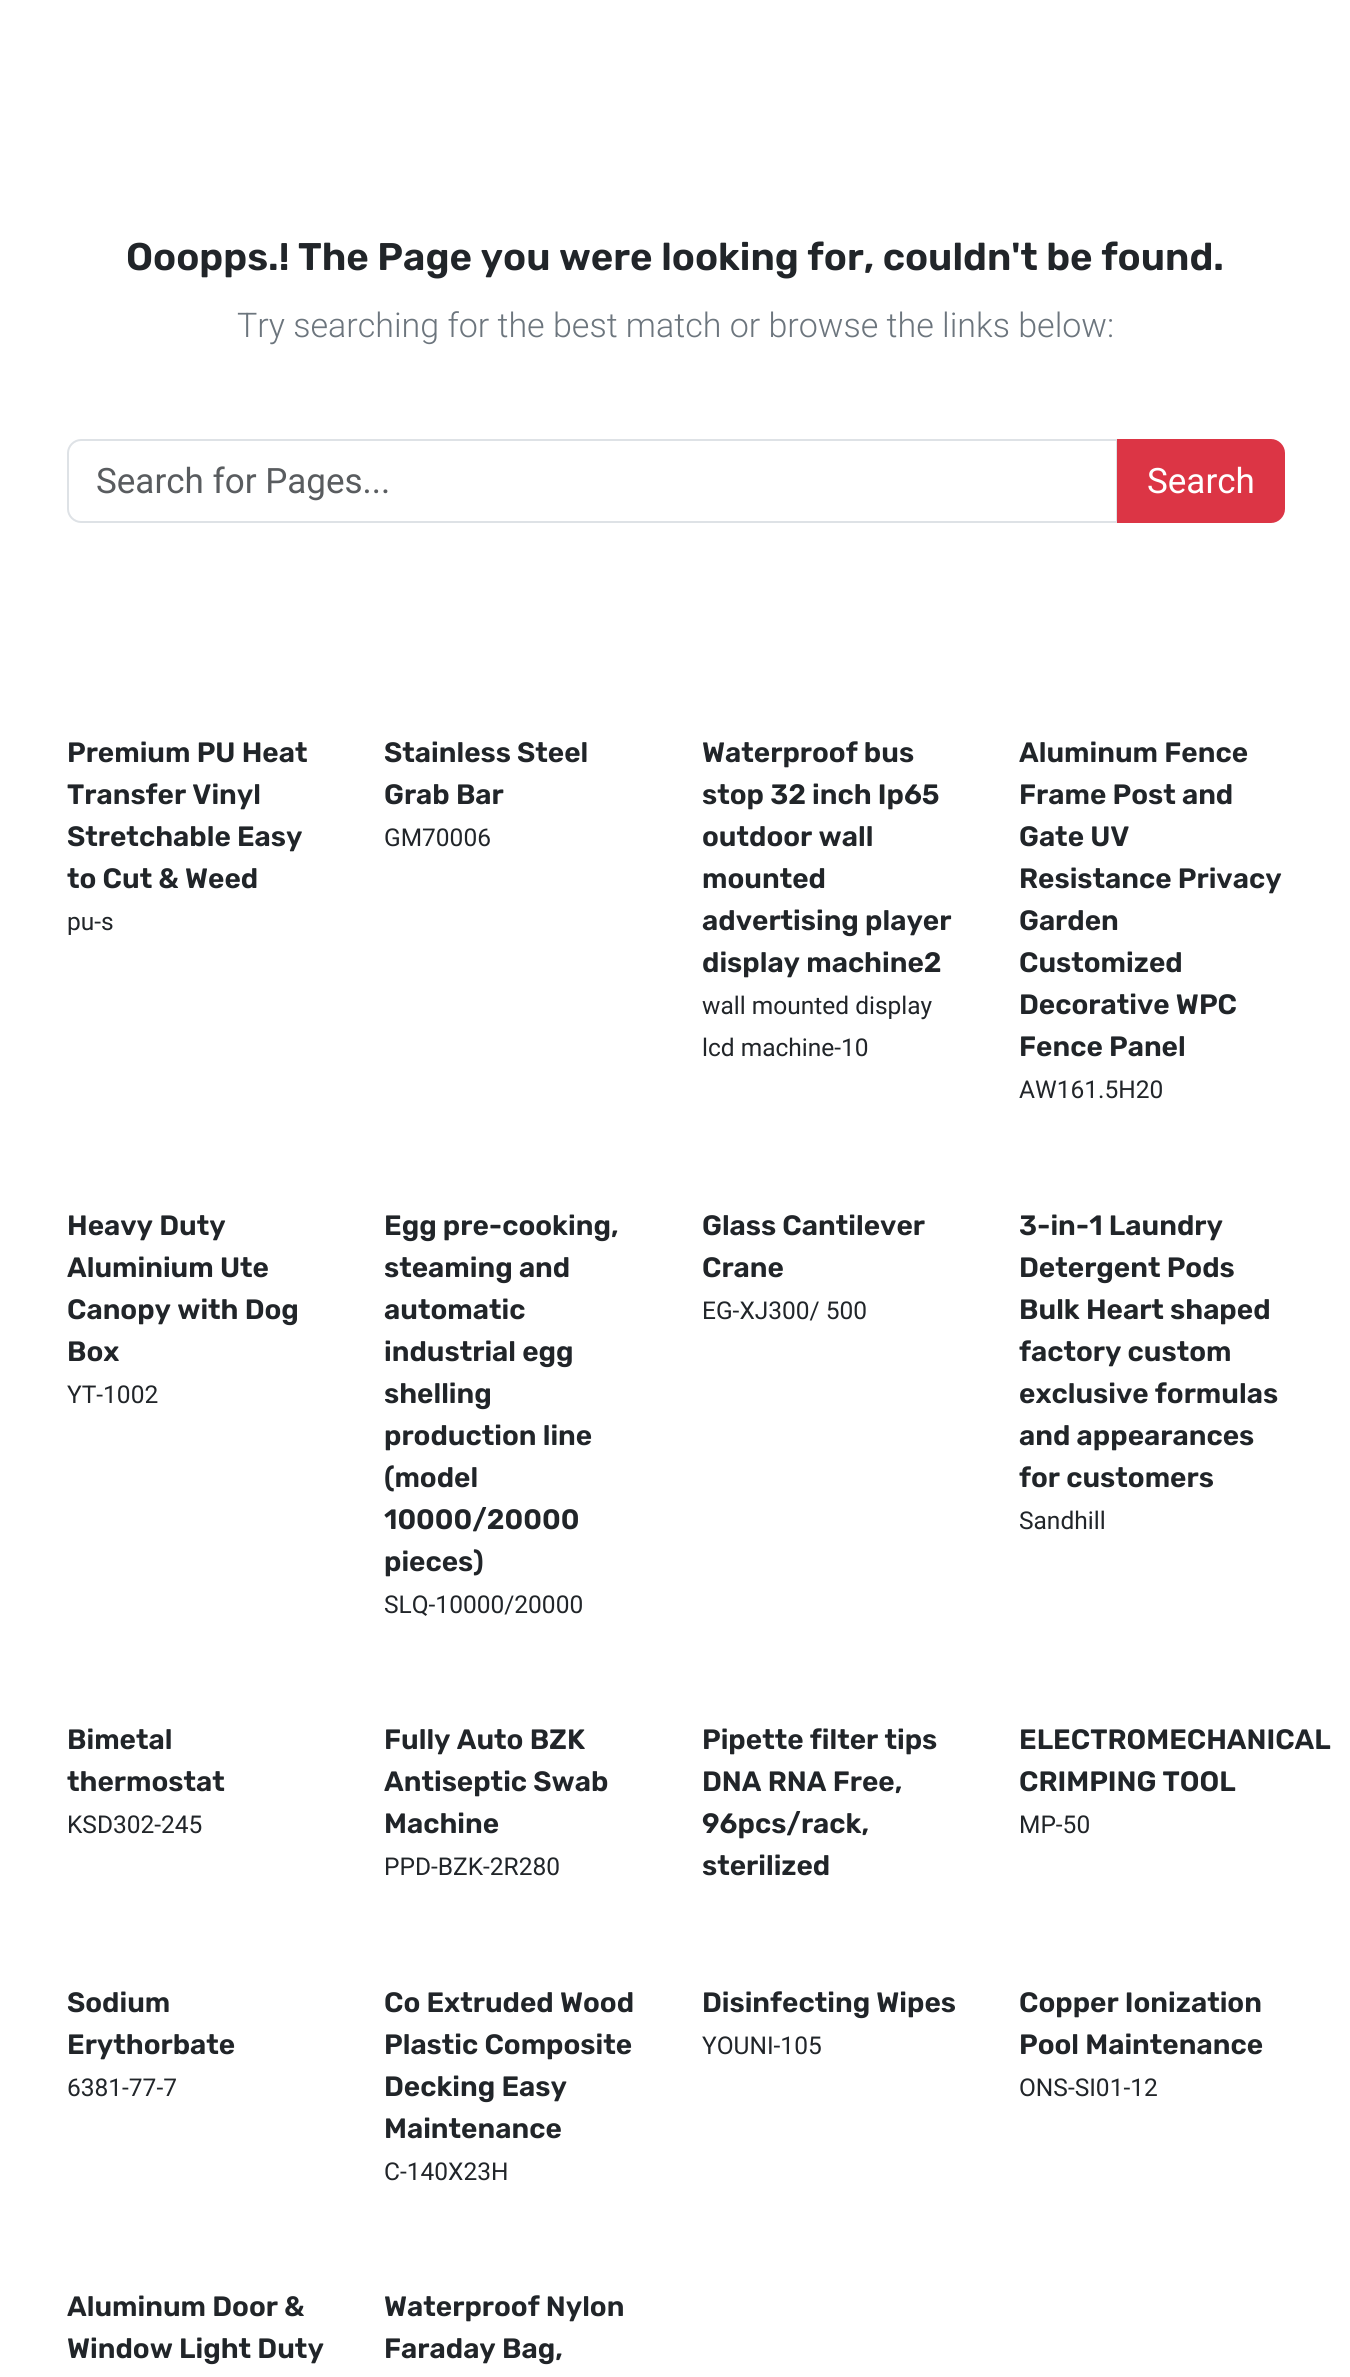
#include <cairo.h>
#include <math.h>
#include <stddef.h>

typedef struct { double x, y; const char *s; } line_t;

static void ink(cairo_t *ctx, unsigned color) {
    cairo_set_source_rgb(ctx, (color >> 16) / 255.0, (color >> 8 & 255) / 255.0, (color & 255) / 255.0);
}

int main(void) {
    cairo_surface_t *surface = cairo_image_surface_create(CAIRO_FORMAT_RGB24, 1350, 2377);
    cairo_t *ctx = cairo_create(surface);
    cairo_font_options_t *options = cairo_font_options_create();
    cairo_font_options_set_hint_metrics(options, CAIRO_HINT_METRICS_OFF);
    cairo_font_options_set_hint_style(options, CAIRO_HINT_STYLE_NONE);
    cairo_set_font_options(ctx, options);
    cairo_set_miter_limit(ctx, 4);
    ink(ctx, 0xFFFFFF);
    cairo_paint(ctx);
    cairo_select_font_face(ctx, "Rubik SemiBold", CAIRO_FONT_SLANT_NORMAL, CAIRO_FONT_WEIGHT_NORMAL);
    cairo_set_font_size(ctx, 38.5);
    ink(ctx, 0x212529);
    cairo_move_to(ctx, 126, 270);
    cairo_show_text(ctx, "Ooopps.! The Page you were looking for, couldn't be found.");
    cairo_select_font_face(ctx, "Roboto Light", CAIRO_FONT_SLANT_NORMAL, CAIRO_FONT_WEIGHT_NORMAL);
    cairo_set_font_size(ctx, 34);
    ink(ctx, 0x6C757D);
    cairo_move_to(ctx, 237, 337);
    cairo_show_text(ctx, "Try searching for the best match or browse the links below:");
    cairo_new_path(ctx);
    cairo_move_to(ctx, 81, 440);
    cairo_line_to(ctx, 1117, 440);
    cairo_line_to(ctx, 1117, 522);
    cairo_line_to(ctx, 81, 522);
    cairo_curve_to(ctx, 74, 522, 68, 516, 68, 509);
    cairo_line_to(ctx, 68, 453);
    cairo_curve_to(ctx, 68, 446, 74, 440, 81, 440);
    cairo_close_path(ctx);
    ink(ctx, 0xDEE2E6);
    cairo_stroke(ctx);
    cairo_select_font_face(ctx, "Roboto", CAIRO_FONT_SLANT_NORMAL, CAIRO_FONT_WEIGHT_NORMAL);
    cairo_set_font_size(ctx, 35);
    ink(ctx, 0x595C5F);
    cairo_move_to(ctx, 96, 493);
    cairo_show_text(ctx, "Search for Pages...");
    ink(ctx, 0xDC3545);
    cairo_new_path(ctx);
    cairo_move_to(ctx, 1118, 440);
    cairo_line_to(ctx, 1271, 440);
    cairo_curve_to(ctx, 1278, 440, 1284, 446, 1284, 453);
    cairo_line_to(ctx, 1284, 509);
    cairo_curve_to(ctx, 1284, 516, 1278, 522, 1271, 522);
    cairo_line_to(ctx, 1118, 522);
    cairo_close_path(ctx);
    cairo_fill_preserve(ctx);
    cairo_stroke(ctx);
    ink(ctx, 0xFFFFFF);
    cairo_move_to(ctx, 1147, 493);
    cairo_show_text(ctx, "Search");
    cairo_select_font_face(ctx, "Rubik SemiBold", CAIRO_FONT_SLANT_NORMAL, CAIRO_FONT_WEIGHT_NORMAL);
    cairo_set_font_size(ctx, 28);
    ink(ctx, 0x212529);
    {
        static const line_t items[] = {
            {67, 762, "Premium PU Heat"},
            {67, 804, "Transfer Vinyl"},
            {67, 846, "Stretchable Easy"},
            {67, 888, "to Cut & Weed"},
        };
        for (size_t i = 0; i < sizeof items / sizeof *items; i++) {
            cairo_move_to(ctx, items[i].x, items[i].y);
            cairo_show_text(ctx, items[i].s);
        }
    }
    cairo_select_font_face(ctx, "Roboto", CAIRO_FONT_SLANT_NORMAL, CAIRO_FONT_WEIGHT_NORMAL);
    cairo_set_font_size(ctx, 24.5);
    cairo_move_to(ctx, 67, 930);
    cairo_show_text(ctx, "pu-s");
    cairo_select_font_face(ctx, "Rubik SemiBold", CAIRO_FONT_SLANT_NORMAL, CAIRO_FONT_WEIGHT_NORMAL);
    cairo_set_font_size(ctx, 28);
    cairo_move_to(ctx, 384, 762);
    cairo_show_text(ctx, "Stainless Steel");
    cairo_move_to(ctx, 384, 804);
    cairo_show_text(ctx, "Grab Bar");
    cairo_select_font_face(ctx, "Roboto", CAIRO_FONT_SLANT_NORMAL, CAIRO_FONT_WEIGHT_NORMAL);
    cairo_set_font_size(ctx, 24.5);
    cairo_move_to(ctx, 384, 846);
    cairo_show_text(ctx, "GM70006");
    cairo_select_font_face(ctx, "Rubik SemiBold", CAIRO_FONT_SLANT_NORMAL, CAIRO_FONT_WEIGHT_NORMAL);
    cairo_set_font_size(ctx, 28);
    {
        static const line_t items[] = {
            {702, 762, "Waterproof bus"},
            {702, 804, "stop 32 inch Ip65"},
            {702, 846, "outdoor wall"},
            {702, 888, "mounted"},
            {702, 930, "advertising player"},
            {702, 972, "display machine2"},
        };
        for (size_t i = 0; i < sizeof items / sizeof *items; i++) {
            cairo_move_to(ctx, items[i].x, items[i].y);
            cairo_show_text(ctx, items[i].s);
        }
    }
    cairo_select_font_face(ctx, "Roboto", CAIRO_FONT_SLANT_NORMAL, CAIRO_FONT_WEIGHT_NORMAL);
    cairo_set_font_size(ctx, 24.5);
    cairo_move_to(ctx, 702, 1014);
    cairo_show_text(ctx, "wall mounted display");
    cairo_move_to(ctx, 702, 1056);
    cairo_show_text(ctx, "lcd machine-10");
    cairo_select_font_face(ctx, "Rubik SemiBold", CAIRO_FONT_SLANT_NORMAL, CAIRO_FONT_WEIGHT_NORMAL);
    cairo_set_font_size(ctx, 28);
    {
        static const line_t items[] = {
            {1019, 762, "Aluminum Fence"},
            {1019, 804, "Frame Post and"},
            {1019, 846, "Gate UV"},
            {1019, 888, "Resistance Privacy"},
            {1019, 930, "Garden"},
            {1019, 972, "Customized"},
            {1019, 1014, "Decorative WPC"},
            {1019, 1056, "Fence Panel"},
        };
        for (size_t i = 0; i < sizeof items / sizeof *items; i++) {
            cairo_move_to(ctx, items[i].x, items[i].y);
            cairo_show_text(ctx, items[i].s);
        }
    }
    cairo_select_font_face(ctx, "Roboto", CAIRO_FONT_SLANT_NORMAL, CAIRO_FONT_WEIGHT_NORMAL);
    cairo_set_font_size(ctx, 24.5);
    cairo_move_to(ctx, 1019, 1098);
    cairo_show_text(ctx, "AW161.5H20");
    cairo_select_font_face(ctx, "Rubik SemiBold", CAIRO_FONT_SLANT_NORMAL, CAIRO_FONT_WEIGHT_NORMAL);
    cairo_set_font_size(ctx, 28);
    {
        static const line_t items[] = {
            {67, 1235, "Heavy Duty"},
            {67, 1277, "Aluminium Ute"},
            {67, 1319, "Canopy with Dog"},
            {67, 1361, "Box"},
        };
        for (size_t i = 0; i < sizeof items / sizeof *items; i++) {
            cairo_move_to(ctx, items[i].x, items[i].y);
            cairo_show_text(ctx, items[i].s);
        }
    }
    cairo_select_font_face(ctx, "Roboto", CAIRO_FONT_SLANT_NORMAL, CAIRO_FONT_WEIGHT_NORMAL);
    cairo_set_font_size(ctx, 24.5);
    cairo_move_to(ctx, 67, 1403);
    cairo_show_text(ctx, "YT-1002");
    cairo_select_font_face(ctx, "Rubik SemiBold", CAIRO_FONT_SLANT_NORMAL, CAIRO_FONT_WEIGHT_NORMAL);
    cairo_set_font_size(ctx, 28);
    {
        static const line_t items[] = {
            {384, 1235, "Egg pre-cooking,"},
            {384, 1277, "steaming and"},
            {384, 1319, "automatic"},
            {384, 1361, "industrial egg"},
            {384, 1403, "shelling"},
            {384, 1445, "production line"},
            {384, 1487, "(model"},
            {384, 1529, "10000/20000"},
            {384, 1571, "pieces)"},
        };
        for (size_t i = 0; i < sizeof items / sizeof *items; i++) {
            cairo_move_to(ctx, items[i].x, items[i].y);
            cairo_show_text(ctx, items[i].s);
        }
    }
    cairo_select_font_face(ctx, "Roboto", CAIRO_FONT_SLANT_NORMAL, CAIRO_FONT_WEIGHT_NORMAL);
    cairo_set_font_size(ctx, 24.5);
    cairo_move_to(ctx, 384, 1613);
    cairo_show_text(ctx, "SLQ-10000/20000");
    cairo_select_font_face(ctx, "Rubik SemiBold", CAIRO_FONT_SLANT_NORMAL, CAIRO_FONT_WEIGHT_NORMAL);
    cairo_set_font_size(ctx, 28);
    cairo_move_to(ctx, 702, 1235);
    cairo_show_text(ctx, "Glass Cantilever");
    cairo_move_to(ctx, 702, 1277);
    cairo_show_text(ctx, "Crane");
    cairo_select_font_face(ctx, "Roboto", CAIRO_FONT_SLANT_NORMAL, CAIRO_FONT_WEIGHT_NORMAL);
    cairo_set_font_size(ctx, 24.5);
    cairo_move_to(ctx, 702, 1319);
    cairo_show_text(ctx, "EG-XJ300/ 500");
    cairo_select_font_face(ctx, "Rubik SemiBold", CAIRO_FONT_SLANT_NORMAL, CAIRO_FONT_WEIGHT_NORMAL);
    cairo_set_font_size(ctx, 28);
    {
        static const line_t items[] = {
            {1019, 1235, "3-in-1 Laundry"},
            {1019, 1277, "Detergent Pods"},
            {1019, 1319, "Bulk Heart shaped"},
            {1019, 1361, "factory custom"},
            {1019, 1403, "exclusive formulas"},
            {1019, 1445, "and appearances"},
            {1019, 1487, "for customers"},
        };
        for (size_t i = 0; i < sizeof items / sizeof *items; i++) {
            cairo_move_to(ctx, items[i].x, items[i].y);
            cairo_show_text(ctx, items[i].s);
        }
    }
    cairo_select_font_face(ctx, "Roboto", CAIRO_FONT_SLANT_NORMAL, CAIRO_FONT_WEIGHT_NORMAL);
    cairo_set_font_size(ctx, 24.5);
    cairo_move_to(ctx, 1019, 1529);
    cairo_show_text(ctx, "Sandhill");
    cairo_select_font_face(ctx, "Rubik SemiBold", CAIRO_FONT_SLANT_NORMAL, CAIRO_FONT_WEIGHT_NORMAL);
    cairo_set_font_size(ctx, 28);
    cairo_move_to(ctx, 67, 1749);
    cairo_show_text(ctx, "Bimetal");
    cairo_move_to(ctx, 67, 1791);
    cairo_show_text(ctx, "thermostat");
    cairo_select_font_face(ctx, "Roboto", CAIRO_FONT_SLANT_NORMAL, CAIRO_FONT_WEIGHT_NORMAL);
    cairo_set_font_size(ctx, 24.5);
    cairo_move_to(ctx, 67, 1833);
    cairo_show_text(ctx, "KSD302-245");
    cairo_select_font_face(ctx, "Rubik SemiBold", CAIRO_FONT_SLANT_NORMAL, CAIRO_FONT_WEIGHT_NORMAL);
    cairo_set_font_size(ctx, 28);
    {
        static const line_t items[] = {
            {384, 1749, "Fully Auto BZK"},
            {384, 1791, "Antiseptic Swab"},
            {384, 1833, "Machine"},
        };
        for (size_t i = 0; i < sizeof items / sizeof *items; i++) {
            cairo_move_to(ctx, items[i].x, items[i].y);
            cairo_show_text(ctx, items[i].s);
        }
    }
    cairo_select_font_face(ctx, "Roboto", CAIRO_FONT_SLANT_NORMAL, CAIRO_FONT_WEIGHT_NORMAL);
    cairo_set_font_size(ctx, 24.5);
    cairo_move_to(ctx, 384, 1875);
    cairo_show_text(ctx, "PPD-BZK-2R280");
    cairo_select_font_face(ctx, "Rubik SemiBold", CAIRO_FONT_SLANT_NORMAL, CAIRO_FONT_WEIGHT_NORMAL);
    cairo_set_font_size(ctx, 28);
    {
        static const line_t items[] = {
            {702, 1749, "Pipette filter tips"},
            {702, 1791, "DNA RNA Free,"},
            {702, 1833, "96pcs/rack,"},
            {702, 1875, "sterilized"},
            {1019, 1749, "ELECTROMECHANICAL"},
            {1019, 1791, "CRIMPING TOOL"},
        };
        for (size_t i = 0; i < sizeof items / sizeof *items; i++) {
            cairo_move_to(ctx, items[i].x, items[i].y);
            cairo_show_text(ctx, items[i].s);
        }
    }
    cairo_select_font_face(ctx, "Roboto", CAIRO_FONT_SLANT_NORMAL, CAIRO_FONT_WEIGHT_NORMAL);
    cairo_set_font_size(ctx, 24.5);
    cairo_move_to(ctx, 1019, 1833);
    cairo_show_text(ctx, "MP-50");
    cairo_select_font_face(ctx, "Rubik SemiBold", CAIRO_FONT_SLANT_NORMAL, CAIRO_FONT_WEIGHT_NORMAL);
    cairo_set_font_size(ctx, 28);
    cairo_move_to(ctx, 67, 2012);
    cairo_show_text(ctx, "Sodium");
    cairo_move_to(ctx, 67, 2054);
    cairo_show_text(ctx, "Erythorbate");
    cairo_select_font_face(ctx, "Roboto", CAIRO_FONT_SLANT_NORMAL, CAIRO_FONT_WEIGHT_NORMAL);
    cairo_set_font_size(ctx, 24.5);
    cairo_move_to(ctx, 67, 2096);
    cairo_show_text(ctx, "6381-77-7");
    cairo_select_font_face(ctx, "Rubik SemiBold", CAIRO_FONT_SLANT_NORMAL, CAIRO_FONT_WEIGHT_NORMAL);
    cairo_set_font_size(ctx, 28);
    {
        static const line_t items[] = {
            {384, 2012, "Co Extruded Wood"},
            {384, 2054, "Plastic Composite"},
            {384, 2096, "Decking Easy"},
            {384, 2138, "Maintenance"},
        };
        for (size_t i = 0; i < sizeof items / sizeof *items; i++) {
            cairo_move_to(ctx, items[i].x, items[i].y);
            cairo_show_text(ctx, items[i].s);
        }
    }
    cairo_select_font_face(ctx, "Roboto", CAIRO_FONT_SLANT_NORMAL, CAIRO_FONT_WEIGHT_NORMAL);
    cairo_set_font_size(ctx, 24.5);
    cairo_move_to(ctx, 384, 2180);
    cairo_show_text(ctx, "C-140X23H");
    cairo_select_font_face(ctx, "Rubik SemiBold", CAIRO_FONT_SLANT_NORMAL, CAIRO_FONT_WEIGHT_NORMAL);
    cairo_set_font_size(ctx, 28);
    cairo_move_to(ctx, 702, 2012);
    cairo_show_text(ctx, "Disinfecting Wipes");
    cairo_select_font_face(ctx, "Roboto", CAIRO_FONT_SLANT_NORMAL, CAIRO_FONT_WEIGHT_NORMAL);
    cairo_set_font_size(ctx, 24.5);
    cairo_move_to(ctx, 702, 2054);
    cairo_show_text(ctx, "YOUNI-105");
    cairo_select_font_face(ctx, "Rubik SemiBold", CAIRO_FONT_SLANT_NORMAL, CAIRO_FONT_WEIGHT_NORMAL);
    cairo_set_font_size(ctx, 28);
    cairo_move_to(ctx, 1019, 2012);
    cairo_show_text(ctx, "Copper Ionization");
    cairo_move_to(ctx, 1019, 2054);
    cairo_show_text(ctx, "Pool Maintenance");
    cairo_select_font_face(ctx, "Roboto", CAIRO_FONT_SLANT_NORMAL, CAIRO_FONT_WEIGHT_NORMAL);
    cairo_set_font_size(ctx, 24.5);
    cairo_move_to(ctx, 1019, 2096);
    cairo_show_text(ctx, "ONS-SI01-12");
    cairo_select_font_face(ctx, "Rubik SemiBold", CAIRO_FONT_SLANT_NORMAL, CAIRO_FONT_WEIGHT_NORMAL);
    cairo_set_font_size(ctx, 28);
    {
        static const line_t items[] = {
            {67, 2316, "Aluminum Door &"},
            {67, 2358, "Window Light Duty"},
            {384, 2316, "Waterproof Nylon"},
            {384, 2358, "Faraday Bag,"},
        };
        for (size_t i = 0; i < sizeof items / sizeof *items; i++) {
            cairo_move_to(ctx, items[i].x, items[i].y);
            cairo_show_text(ctx, items[i].s);
        }
    }
    cairo_surface_write_to_png(surface, "image.png");
    cairo_font_options_destroy(options);
    cairo_destroy(ctx);
    cairo_surface_destroy(surface);
    return 0;
}
